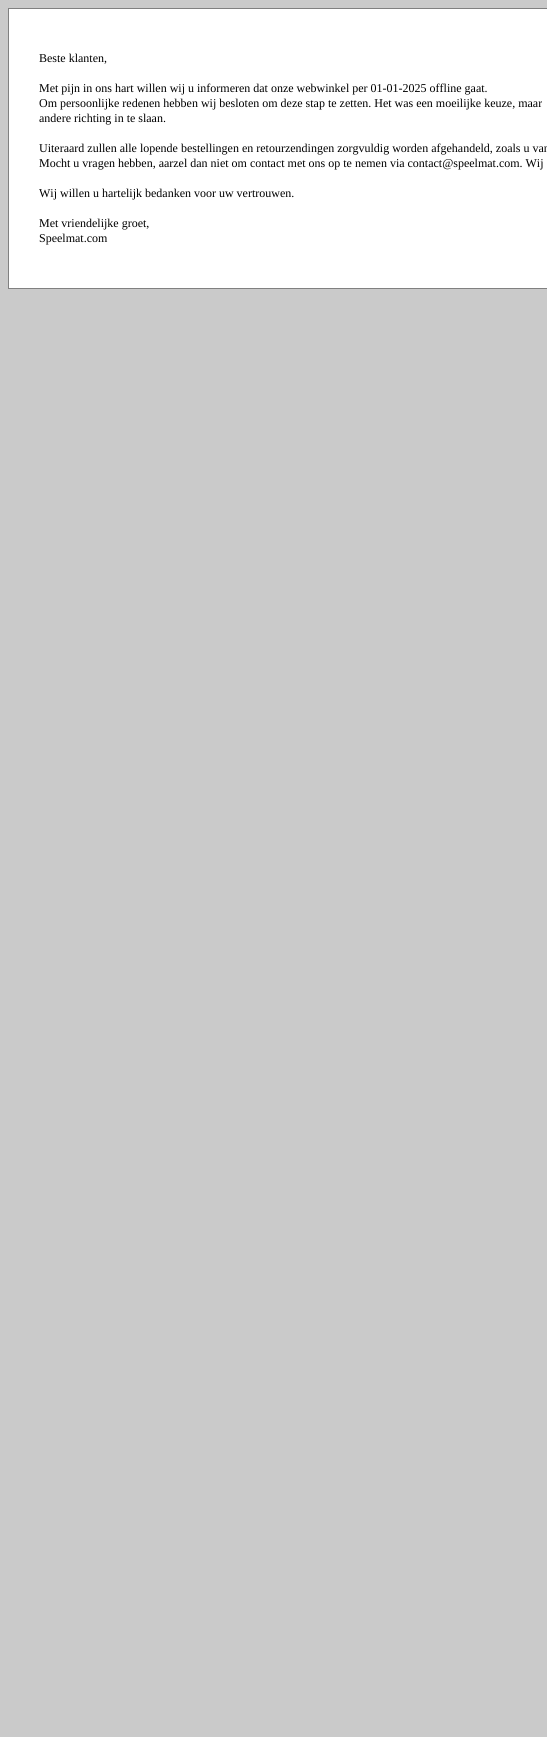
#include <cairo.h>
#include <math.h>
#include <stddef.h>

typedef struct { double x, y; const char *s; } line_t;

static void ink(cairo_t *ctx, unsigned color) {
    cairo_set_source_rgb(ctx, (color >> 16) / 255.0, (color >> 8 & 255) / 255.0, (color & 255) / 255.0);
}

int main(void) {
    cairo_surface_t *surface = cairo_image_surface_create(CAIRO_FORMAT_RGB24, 547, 1737);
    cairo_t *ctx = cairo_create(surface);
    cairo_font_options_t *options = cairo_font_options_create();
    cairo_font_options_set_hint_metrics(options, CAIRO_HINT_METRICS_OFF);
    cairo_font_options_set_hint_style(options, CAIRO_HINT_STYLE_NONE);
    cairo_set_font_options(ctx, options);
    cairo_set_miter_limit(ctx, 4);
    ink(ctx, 0xCACACA);
    cairo_paint(ctx);
    ink(ctx, 0xFFFFFF);
    cairo_rectangle(ctx, 8.5, 8.5, 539, 280);
    cairo_fill_preserve(ctx);
    ink(ctx, 0x808080);
    cairo_set_line_width(ctx, 1);
    cairo_stroke(ctx);
    cairo_select_font_face(ctx, "Liberation Serif", CAIRO_FONT_SLANT_NORMAL, CAIRO_FONT_WEIGHT_NORMAL);
    cairo_set_font_size(ctx, 12);
    ink(ctx, 0x000000);
    {
        static const line_t items[] = {
            {39, 62, "Beste klanten,"},
            {39, 92, "Met pijn in ons hart willen wij u informeren dat onze webwinkel per 01-01-2025 offline gaat."},
            {39, 107, "Om persoonlijke redenen hebben wij besloten om deze stap te zetten. Het was een moeilijke keuze, maar"},
            {39, 122, "andere richting in te slaan."},
            {39, 152, "Uiteraard zullen alle lopende bestellingen en retourzendingen zorgvuldig worden afgehandeld, zoals u van"},
            {39, 167, "Mocht u vragen hebben, aarzel dan niet om contact met ons op te nemen via contact@speelmat.com. Wij"},
            {39, 197, "Wij willen u hartelijk bedanken voor uw vertrouwen."},
            {39, 227, "Met vriendelijke groet,"},
            {39, 242, "Speelmat.com"},
        };
        for (size_t i = 0; i < sizeof items / sizeof *items; i++) {
            cairo_move_to(ctx, items[i].x, items[i].y);
            cairo_show_text(ctx, items[i].s);
        }
    }
    cairo_surface_write_to_png(surface, "image.png");
    cairo_font_options_destroy(options);
    cairo_destroy(ctx);
    cairo_surface_destroy(surface);
    return 0;
}
